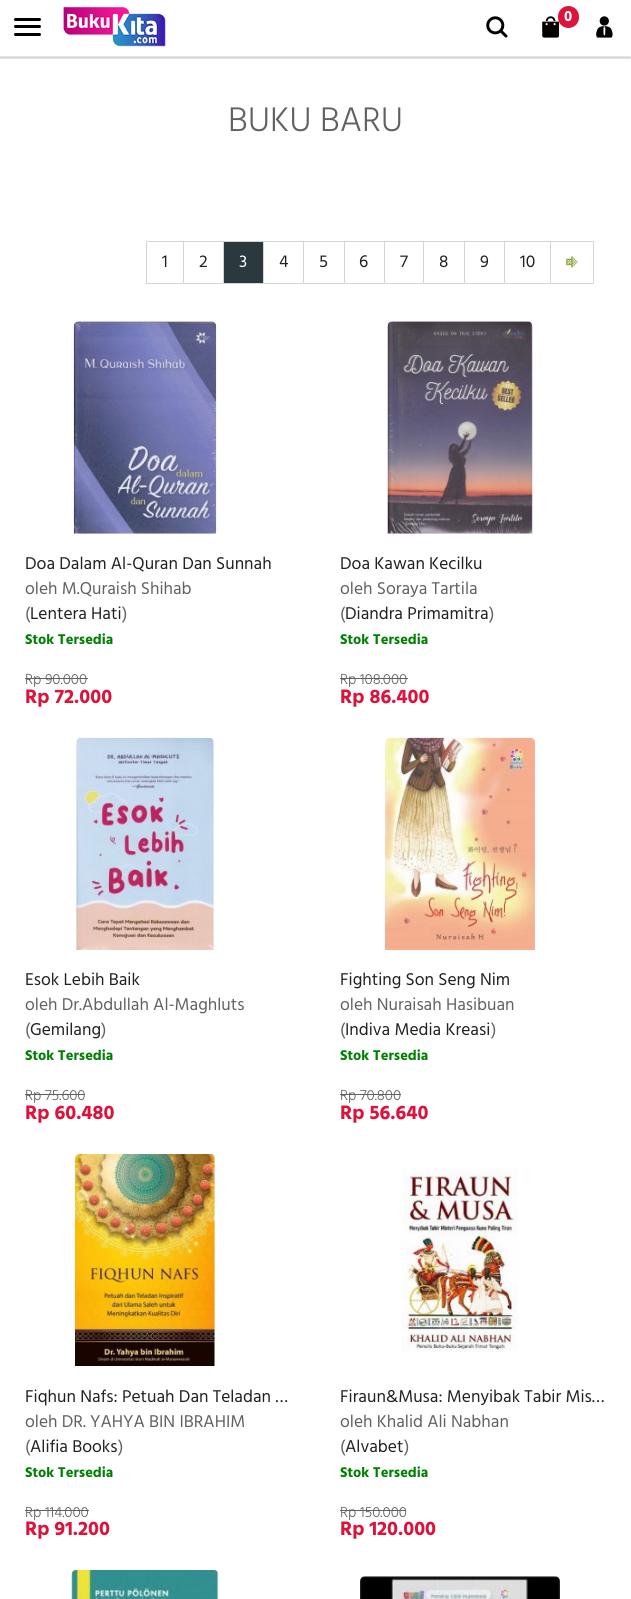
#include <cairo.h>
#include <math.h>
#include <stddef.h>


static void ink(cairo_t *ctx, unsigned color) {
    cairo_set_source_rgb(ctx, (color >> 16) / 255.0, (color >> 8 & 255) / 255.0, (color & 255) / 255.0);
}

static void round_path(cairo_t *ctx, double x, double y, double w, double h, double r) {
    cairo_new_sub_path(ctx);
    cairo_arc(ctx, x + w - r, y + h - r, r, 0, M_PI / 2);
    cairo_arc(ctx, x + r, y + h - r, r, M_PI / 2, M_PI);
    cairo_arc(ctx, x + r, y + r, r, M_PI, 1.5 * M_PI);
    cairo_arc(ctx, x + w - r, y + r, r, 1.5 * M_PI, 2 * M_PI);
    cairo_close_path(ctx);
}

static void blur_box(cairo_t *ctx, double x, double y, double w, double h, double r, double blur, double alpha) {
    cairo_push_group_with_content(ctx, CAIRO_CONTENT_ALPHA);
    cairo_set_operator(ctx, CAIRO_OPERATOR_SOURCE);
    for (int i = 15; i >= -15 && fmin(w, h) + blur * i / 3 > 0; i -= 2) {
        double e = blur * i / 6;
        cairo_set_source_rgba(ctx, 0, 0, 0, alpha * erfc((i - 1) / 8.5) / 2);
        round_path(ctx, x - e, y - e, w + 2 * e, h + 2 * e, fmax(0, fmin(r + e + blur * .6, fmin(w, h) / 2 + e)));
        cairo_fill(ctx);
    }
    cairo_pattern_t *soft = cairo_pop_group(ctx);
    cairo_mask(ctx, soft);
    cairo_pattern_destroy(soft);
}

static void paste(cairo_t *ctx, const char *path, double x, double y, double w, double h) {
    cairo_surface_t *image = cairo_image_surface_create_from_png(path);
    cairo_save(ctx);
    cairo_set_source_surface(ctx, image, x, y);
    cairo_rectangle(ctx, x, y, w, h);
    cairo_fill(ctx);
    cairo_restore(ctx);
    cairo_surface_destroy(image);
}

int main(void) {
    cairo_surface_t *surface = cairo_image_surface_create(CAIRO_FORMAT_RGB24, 631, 1599);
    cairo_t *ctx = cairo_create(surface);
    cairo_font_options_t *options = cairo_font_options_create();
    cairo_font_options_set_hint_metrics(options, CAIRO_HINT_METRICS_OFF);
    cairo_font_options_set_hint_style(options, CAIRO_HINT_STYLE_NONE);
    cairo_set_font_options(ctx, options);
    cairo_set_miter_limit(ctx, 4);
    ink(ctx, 0xFFFFFF);
    cairo_paint(ctx);
    cairo_save(ctx);
    cairo_rectangle(ctx, 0, 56, 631, 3);
    cairo_clip(ctx);
    ink(ctx, 0x000000);
    blur_box(ctx, 0, 3, 631, 56, 0, 0.5, 0.15);
    cairo_restore(ctx);
    cairo_set_source_rgba(ctx, 1, 1, 1, 0.25);
    cairo_rectangle(ctx, 0, 56, 631, 1);
    cairo_fill(ctx);
    ink(ctx, 0x000001);
    round_path(ctx, 14, 18, 27, 3, 1.5);
    cairo_fill(ctx);
    round_path(ctx, 14, 25, 27, 3, 1.5);
    cairo_fill(ctx);
    round_path(ctx, 14, 33, 27, 3, 1.5);
    cairo_fill(ctx);
    paste(ctx, "media/1.png", 63, 7, 103, 40);
    paste(ctx, "media/2.png", 486, 16, 22, 22);
    paste(ctx, "media/3.png", 542, 16, 18, 22);
    ink(ctx, 0xDC143C);
    round_path(ctx, 558, 6, 21, 22, 10.5);
    cairo_fill(ctx);
    cairo_select_font_face(ctx, "Hind", CAIRO_FONT_SLANT_NORMAL, CAIRO_FONT_WEIGHT_BOLD);
    cairo_set_font_size(ctx, 15);
    ink(ctx, 0xFFFFFF);
    cairo_move_to(ctx, 564, 21);
    cairo_show_text(ctx, "0");
    paste(ctx, "media/4.png", 596, 16, 17, 22);
    cairo_select_font_face(ctx, "Hind Light", CAIRO_FONT_SLANT_NORMAL, CAIRO_FONT_WEIGHT_NORMAL);
    cairo_set_font_size(ctx, 35);
    ink(ctx, 0x616161);
    cairo_move_to(ctx, 228, 131);
    cairo_show_text(ctx, "BUKU BARU");
    cairo_new_path(ctx);
    cairo_move_to(ctx, 147, 241.5);
    cairo_line_to(ctx, 183.5, 241.5);
    cairo_line_to(ctx, 183.5, 283.5);
    cairo_line_to(ctx, 147, 283.5);
    cairo_curve_to(ctx, 146.5, 283.5, 146.5, 283.5, 146.5, 283);
    cairo_line_to(ctx, 146.5, 242);
    cairo_curve_to(ctx, 146.5, 241.5, 146.5, 241.5, 147, 241.5);
    cairo_close_path(ctx);
    ink(ctx, 0xD0D7DA);
    cairo_set_line_width(ctx, 1);
    cairo_stroke(ctx);
    cairo_select_font_face(ctx, "Hind", CAIRO_FONT_SLANT_NORMAL, CAIRO_FONT_WEIGHT_NORMAL);
    cairo_set_font_size(ctx, 17.5);
    ink(ctx, 0x212121);
    cairo_move_to(ctx, 162, 267);
    cairo_show_text(ctx, "1");
    cairo_rectangle(ctx, 183.5, 241.5, 40, 42);
    ink(ctx, 0xD0D7DA);
    cairo_stroke(ctx);
    ink(ctx, 0x212121);
    cairo_move_to(ctx, 199, 267);
    cairo_show_text(ctx, "2");
    cairo_rectangle(ctx, 263.5, 241.5, 40, 42);
    ink(ctx, 0xD0D7DA);
    cairo_stroke(ctx);
    ink(ctx, 0x2B383E);
    cairo_rectangle(ctx, 223.5, 241.5, 40, 42);
    cairo_fill_preserve(ctx);
    ink(ctx, 0xD0D7DA);
    cairo_stroke(ctx);
    ink(ctx, 0xFFFFFF);
    cairo_move_to(ctx, 239, 267);
    cairo_show_text(ctx, "3");
    ink(ctx, 0x212121);
    cairo_move_to(ctx, 279, 267);
    cairo_show_text(ctx, "4");
    cairo_rectangle(ctx, 303.5, 241.5, 41, 42);
    ink(ctx, 0xD0D7DA);
    cairo_stroke(ctx);
    ink(ctx, 0x212121);
    cairo_move_to(ctx, 319, 267);
    cairo_show_text(ctx, "5");
    cairo_rectangle(ctx, 344.5, 241.5, 40, 42);
    ink(ctx, 0xD0D7DA);
    cairo_stroke(ctx);
    ink(ctx, 0x212121);
    cairo_move_to(ctx, 359, 267);
    cairo_show_text(ctx, "6");
    cairo_rectangle(ctx, 384.5, 241.5, 39, 42);
    ink(ctx, 0xD0D7DA);
    cairo_stroke(ctx);
    ink(ctx, 0x212121);
    cairo_move_to(ctx, 400, 267);
    cairo_show_text(ctx, "7");
    cairo_rectangle(ctx, 423.5, 241.5, 41, 42);
    ink(ctx, 0xD0D7DA);
    cairo_stroke(ctx);
    ink(ctx, 0x212121);
    cairo_move_to(ctx, 439, 267);
    cairo_show_text(ctx, "8");
    cairo_rectangle(ctx, 464.5, 241.5, 40, 42);
    ink(ctx, 0xD0D7DA);
    cairo_stroke(ctx);
    ink(ctx, 0x212121);
    cairo_move_to(ctx, 480, 267);
    cairo_show_text(ctx, "9");
    cairo_rectangle(ctx, 504.5, 241.5, 46, 42);
    ink(ctx, 0xD0D7DA);
    cairo_stroke(ctx);
    ink(ctx, 0x212121);
    cairo_move_to(ctx, 520, 267);
    cairo_show_text(ctx, "10");
    ink(ctx, 0xFFFFFF);
    cairo_new_path(ctx);
    cairo_move_to(ctx, 550.5, 241.5);
    cairo_line_to(ctx, 593, 241.5);
    cairo_curve_to(ctx, 593.5, 241.5, 593.5, 241.5, 593.5, 242);
    cairo_line_to(ctx, 593.5, 283);
    cairo_curve_to(ctx, 593.5, 283.5, 593.5, 283.5, 593, 283.5);
    cairo_line_to(ctx, 550.5, 283.5);
    cairo_close_path(ctx);
    cairo_fill_preserve(ctx);
    ink(ctx, 0xD0D7DA);
    cairo_stroke(ctx);
    paste(ctx, "media/5.png", 566, 256, 12, 12);
    paste(ctx, "media/6.png", 73, 321, 144, 213);
    ink(ctx, 0x212121);
    cairo_move_to(ctx, 25, 569);
    cairo_show_text(ctx, "Doa Dalam Al-Quran Dan Sunnah");
    ink(ctx, 0x616161);
    cairo_move_to(ctx, 25, 594);
    cairo_show_text(ctx, "oleh M.Quraish Shihab");
    cairo_move_to(ctx, 25, 619);
    cairo_show_text(ctx, "(");
    ink(ctx, 0x212121);
    cairo_move_to(ctx, 30, 619);
    cairo_show_text(ctx, "Lentera Hati");
    ink(ctx, 0x616161);
    cairo_move_to(ctx, 122, 619);
    cairo_show_text(ctx, ")");
    cairo_select_font_face(ctx, "Hind", CAIRO_FONT_SLANT_NORMAL, CAIRO_FONT_WEIGHT_BOLD);
    cairo_set_font_size(ctx, 14.5);
    ink(ctx, 0x008000);
    cairo_move_to(ctx, 25, 644);
    cairo_show_text(ctx, "Stok Tersedia");
    cairo_select_font_face(ctx, "Hind Light", CAIRO_FONT_SLANT_NORMAL, CAIRO_FONT_WEIGHT_NORMAL);
    cairo_set_font_size(ctx, 15);
    ink(ctx, 0x616161);
    cairo_move_to(ctx, 25, 684);
    cairo_show_text(ctx, "Rp 90.000");
    cairo_rectangle(ctx, 25, 678, 63, 1);
    cairo_fill(ctx);
    cairo_select_font_face(ctx, "Hind", CAIRO_FONT_SLANT_NORMAL, CAIRO_FONT_WEIGHT_BOLD);
    cairo_set_font_size(ctx, 20);
    ink(ctx, 0xDC143C);
    cairo_move_to(ctx, 25, 703);
    cairo_show_text(ctx, "Rp 72.000");
    paste(ctx, "media/7.png", 387, 321, 146, 213);
    cairo_select_font_face(ctx, "Hind", CAIRO_FONT_SLANT_NORMAL, CAIRO_FONT_WEIGHT_NORMAL);
    cairo_set_font_size(ctx, 17.5);
    ink(ctx, 0x212121);
    cairo_move_to(ctx, 340, 569);
    cairo_show_text(ctx, "Doa Kawan Kecilku");
    ink(ctx, 0x616161);
    cairo_move_to(ctx, 340, 594);
    cairo_show_text(ctx, "oleh Soraya Tartila");
    cairo_move_to(ctx, 340, 619);
    cairo_show_text(ctx, "(");
    ink(ctx, 0x212121);
    cairo_move_to(ctx, 345, 619);
    cairo_show_text(ctx, "Diandra Primamitra");
    ink(ctx, 0x616161);
    cairo_move_to(ctx, 489, 619);
    cairo_show_text(ctx, ")");
    cairo_select_font_face(ctx, "Hind", CAIRO_FONT_SLANT_NORMAL, CAIRO_FONT_WEIGHT_BOLD);
    cairo_set_font_size(ctx, 14.5);
    ink(ctx, 0x008000);
    cairo_move_to(ctx, 340, 644);
    cairo_show_text(ctx, "Stok Tersedia");
    cairo_select_font_face(ctx, "Hind Light", CAIRO_FONT_SLANT_NORMAL, CAIRO_FONT_WEIGHT_NORMAL);
    cairo_set_font_size(ctx, 15);
    ink(ctx, 0x616161);
    cairo_move_to(ctx, 340, 684);
    cairo_show_text(ctx, "Rp 108.000");
    cairo_rectangle(ctx, 340, 678, 68, 1);
    cairo_fill(ctx);
    cairo_select_font_face(ctx, "Hind", CAIRO_FONT_SLANT_NORMAL, CAIRO_FONT_WEIGHT_BOLD);
    cairo_set_font_size(ctx, 20);
    ink(ctx, 0xDC143C);
    cairo_move_to(ctx, 340, 703);
    cairo_show_text(ctx, "Rp 86.400");
    paste(ctx, "media/8.png", 76, 737, 138, 213);
    cairo_select_font_face(ctx, "Hind", CAIRO_FONT_SLANT_NORMAL, CAIRO_FONT_WEIGHT_NORMAL);
    cairo_set_font_size(ctx, 17.5);
    ink(ctx, 0x212121);
    cairo_move_to(ctx, 25, 985);
    cairo_show_text(ctx, "Esok Lebih Baik");
    ink(ctx, 0x616161);
    cairo_move_to(ctx, 25, 1010);
    cairo_show_text(ctx, "oleh Dr.Abdullah Al-Maghluts");
    cairo_move_to(ctx, 25, 1035);
    cairo_show_text(ctx, "(");
    ink(ctx, 0x212121);
    cairo_move_to(ctx, 30, 1035);
    cairo_show_text(ctx, "Gemilang");
    ink(ctx, 0x616161);
    cairo_move_to(ctx, 101, 1035);
    cairo_show_text(ctx, ")");
    cairo_select_font_face(ctx, "Hind", CAIRO_FONT_SLANT_NORMAL, CAIRO_FONT_WEIGHT_BOLD);
    cairo_set_font_size(ctx, 14.5);
    ink(ctx, 0x008000);
    cairo_move_to(ctx, 25, 1060);
    cairo_show_text(ctx, "Stok Tersedia");
    cairo_select_font_face(ctx, "Hind Light", CAIRO_FONT_SLANT_NORMAL, CAIRO_FONT_WEIGHT_NORMAL);
    cairo_set_font_size(ctx, 15);
    ink(ctx, 0x616161);
    cairo_move_to(ctx, 25, 1100);
    cairo_show_text(ctx, "Rp 75.600");
    cairo_rectangle(ctx, 25, 1094, 60, 1);
    cairo_fill(ctx);
    cairo_select_font_face(ctx, "Hind", CAIRO_FONT_SLANT_NORMAL, CAIRO_FONT_WEIGHT_BOLD);
    cairo_set_font_size(ctx, 20);
    ink(ctx, 0xDC143C);
    cairo_move_to(ctx, 25, 1119);
    cairo_show_text(ctx, "Rp 60.480");
    paste(ctx, "media/9.png", 385, 737, 150, 213);
    cairo_select_font_face(ctx, "Hind", CAIRO_FONT_SLANT_NORMAL, CAIRO_FONT_WEIGHT_NORMAL);
    cairo_set_font_size(ctx, 17.5);
    ink(ctx, 0x212121);
    cairo_move_to(ctx, 340, 985);
    cairo_show_text(ctx, "Fighting Son Seng Nim");
    ink(ctx, 0x616161);
    cairo_move_to(ctx, 340, 1010);
    cairo_show_text(ctx, "oleh Nuraisah Hasibuan");
    cairo_move_to(ctx, 340, 1035);
    cairo_show_text(ctx, "(");
    ink(ctx, 0x212121);
    cairo_move_to(ctx, 345, 1035);
    cairo_show_text(ctx, "Indiva Media Kreasi");
    ink(ctx, 0x616161);
    cairo_move_to(ctx, 491, 1035);
    cairo_show_text(ctx, ")");
    cairo_select_font_face(ctx, "Hind", CAIRO_FONT_SLANT_NORMAL, CAIRO_FONT_WEIGHT_BOLD);
    cairo_set_font_size(ctx, 14.5);
    ink(ctx, 0x008000);
    cairo_move_to(ctx, 340, 1060);
    cairo_show_text(ctx, "Stok Tersedia");
    cairo_select_font_face(ctx, "Hind Light", CAIRO_FONT_SLANT_NORMAL, CAIRO_FONT_WEIGHT_NORMAL);
    cairo_set_font_size(ctx, 15);
    ink(ctx, 0x616161);
    cairo_move_to(ctx, 340, 1100);
    cairo_show_text(ctx, "Rp 70.800");
    cairo_rectangle(ctx, 340, 1094, 61, 1);
    cairo_fill(ctx);
    cairo_select_font_face(ctx, "Hind", CAIRO_FONT_SLANT_NORMAL, CAIRO_FONT_WEIGHT_BOLD);
    cairo_set_font_size(ctx, 20);
    ink(ctx, 0xDC143C);
    cairo_move_to(ctx, 340, 1119);
    cairo_show_text(ctx, "Rp 56.640");
    paste(ctx, "media/10.png", 75, 1154, 140, 212);
    cairo_select_font_face(ctx, "Hind", CAIRO_FONT_SLANT_NORMAL, CAIRO_FONT_WEIGHT_NORMAL);
    cairo_set_font_size(ctx, 17.5);
    ink(ctx, 0x212121);
    cairo_move_to(ctx, 25, 1402);
    cairo_show_text(ctx, "Fiqhun Nafs: Petuah Dan Teladan …");
    ink(ctx, 0x616161);
    cairo_move_to(ctx, 25, 1427);
    cairo_show_text(ctx, "oleh DR. YAHYA BIN IBRAHIM");
    cairo_move_to(ctx, 25, 1452);
    cairo_show_text(ctx, "(");
    ink(ctx, 0x212121);
    cairo_move_to(ctx, 30, 1452);
    cairo_show_text(ctx, "Alifia Books");
    ink(ctx, 0x616161);
    cairo_move_to(ctx, 118, 1452);
    cairo_show_text(ctx, ")");
    cairo_select_font_face(ctx, "Hind", CAIRO_FONT_SLANT_NORMAL, CAIRO_FONT_WEIGHT_BOLD);
    cairo_set_font_size(ctx, 14.5);
    ink(ctx, 0x008000);
    cairo_move_to(ctx, 25, 1477);
    cairo_show_text(ctx, "Stok Tersedia");
    cairo_select_font_face(ctx, "Hind Light", CAIRO_FONT_SLANT_NORMAL, CAIRO_FONT_WEIGHT_NORMAL);
    cairo_set_font_size(ctx, 15);
    ink(ctx, 0x616161);
    cairo_move_to(ctx, 25, 1517);
    cairo_show_text(ctx, "Rp 114.000");
    cairo_rectangle(ctx, 25, 1510, 64, 1);
    cairo_fill(ctx);
    cairo_select_font_face(ctx, "Hind", CAIRO_FONT_SLANT_NORMAL, CAIRO_FONT_WEIGHT_BOLD);
    cairo_set_font_size(ctx, 20);
    ink(ctx, 0xDC143C);
    cairo_move_to(ctx, 25, 1535);
    cairo_show_text(ctx, "Rp 91.200");
    paste(ctx, "media/11.png", 401, 1168, 117, 184);
    cairo_select_font_face(ctx, "Hind", CAIRO_FONT_SLANT_NORMAL, CAIRO_FONT_WEIGHT_NORMAL);
    cairo_set_font_size(ctx, 17.5);
    ink(ctx, 0x212121);
    cairo_move_to(ctx, 340, 1402);
    cairo_show_text(ctx, "Firaun&Musa: Menyibak Tabir Mis…");
    ink(ctx, 0x616161);
    cairo_move_to(ctx, 340, 1427);
    cairo_show_text(ctx, "oleh Khalid Ali Nabhan");
    cairo_move_to(ctx, 340, 1452);
    cairo_show_text(ctx, "(");
    ink(ctx, 0x212121);
    cairo_move_to(ctx, 345, 1452);
    cairo_show_text(ctx, "Alvabet");
    ink(ctx, 0x616161);
    cairo_move_to(ctx, 404, 1452);
    cairo_show_text(ctx, ")");
    cairo_select_font_face(ctx, "Hind", CAIRO_FONT_SLANT_NORMAL, CAIRO_FONT_WEIGHT_BOLD);
    cairo_set_font_size(ctx, 14.5);
    ink(ctx, 0x008000);
    cairo_move_to(ctx, 340, 1477);
    cairo_show_text(ctx, "Stok Tersedia");
    cairo_select_font_face(ctx, "Hind Light", CAIRO_FONT_SLANT_NORMAL, CAIRO_FONT_WEIGHT_NORMAL);
    cairo_set_font_size(ctx, 15);
    ink(ctx, 0x616161);
    cairo_move_to(ctx, 340, 1517);
    cairo_show_text(ctx, "Rp 150.000");
    cairo_rectangle(ctx, 340, 1510, 66, 1);
    cairo_fill(ctx);
    cairo_select_font_face(ctx, "Hind", CAIRO_FONT_SLANT_NORMAL, CAIRO_FONT_WEIGHT_BOLD);
    cairo_set_font_size(ctx, 20);
    ink(ctx, 0xDC143C);
    cairo_move_to(ctx, 340, 1535);
    cairo_show_text(ctx, "Rp 120.000");
    paste(ctx, "media/12.png", 71, 1570, 148, 29);
    paste(ctx, "media/13.png", 360, 1576, 200, 23);
    cairo_surface_write_to_png(surface, "image.png");
    cairo_font_options_destroy(options);
    cairo_destroy(ctx);
    cairo_surface_destroy(surface);
    return 0;
}
